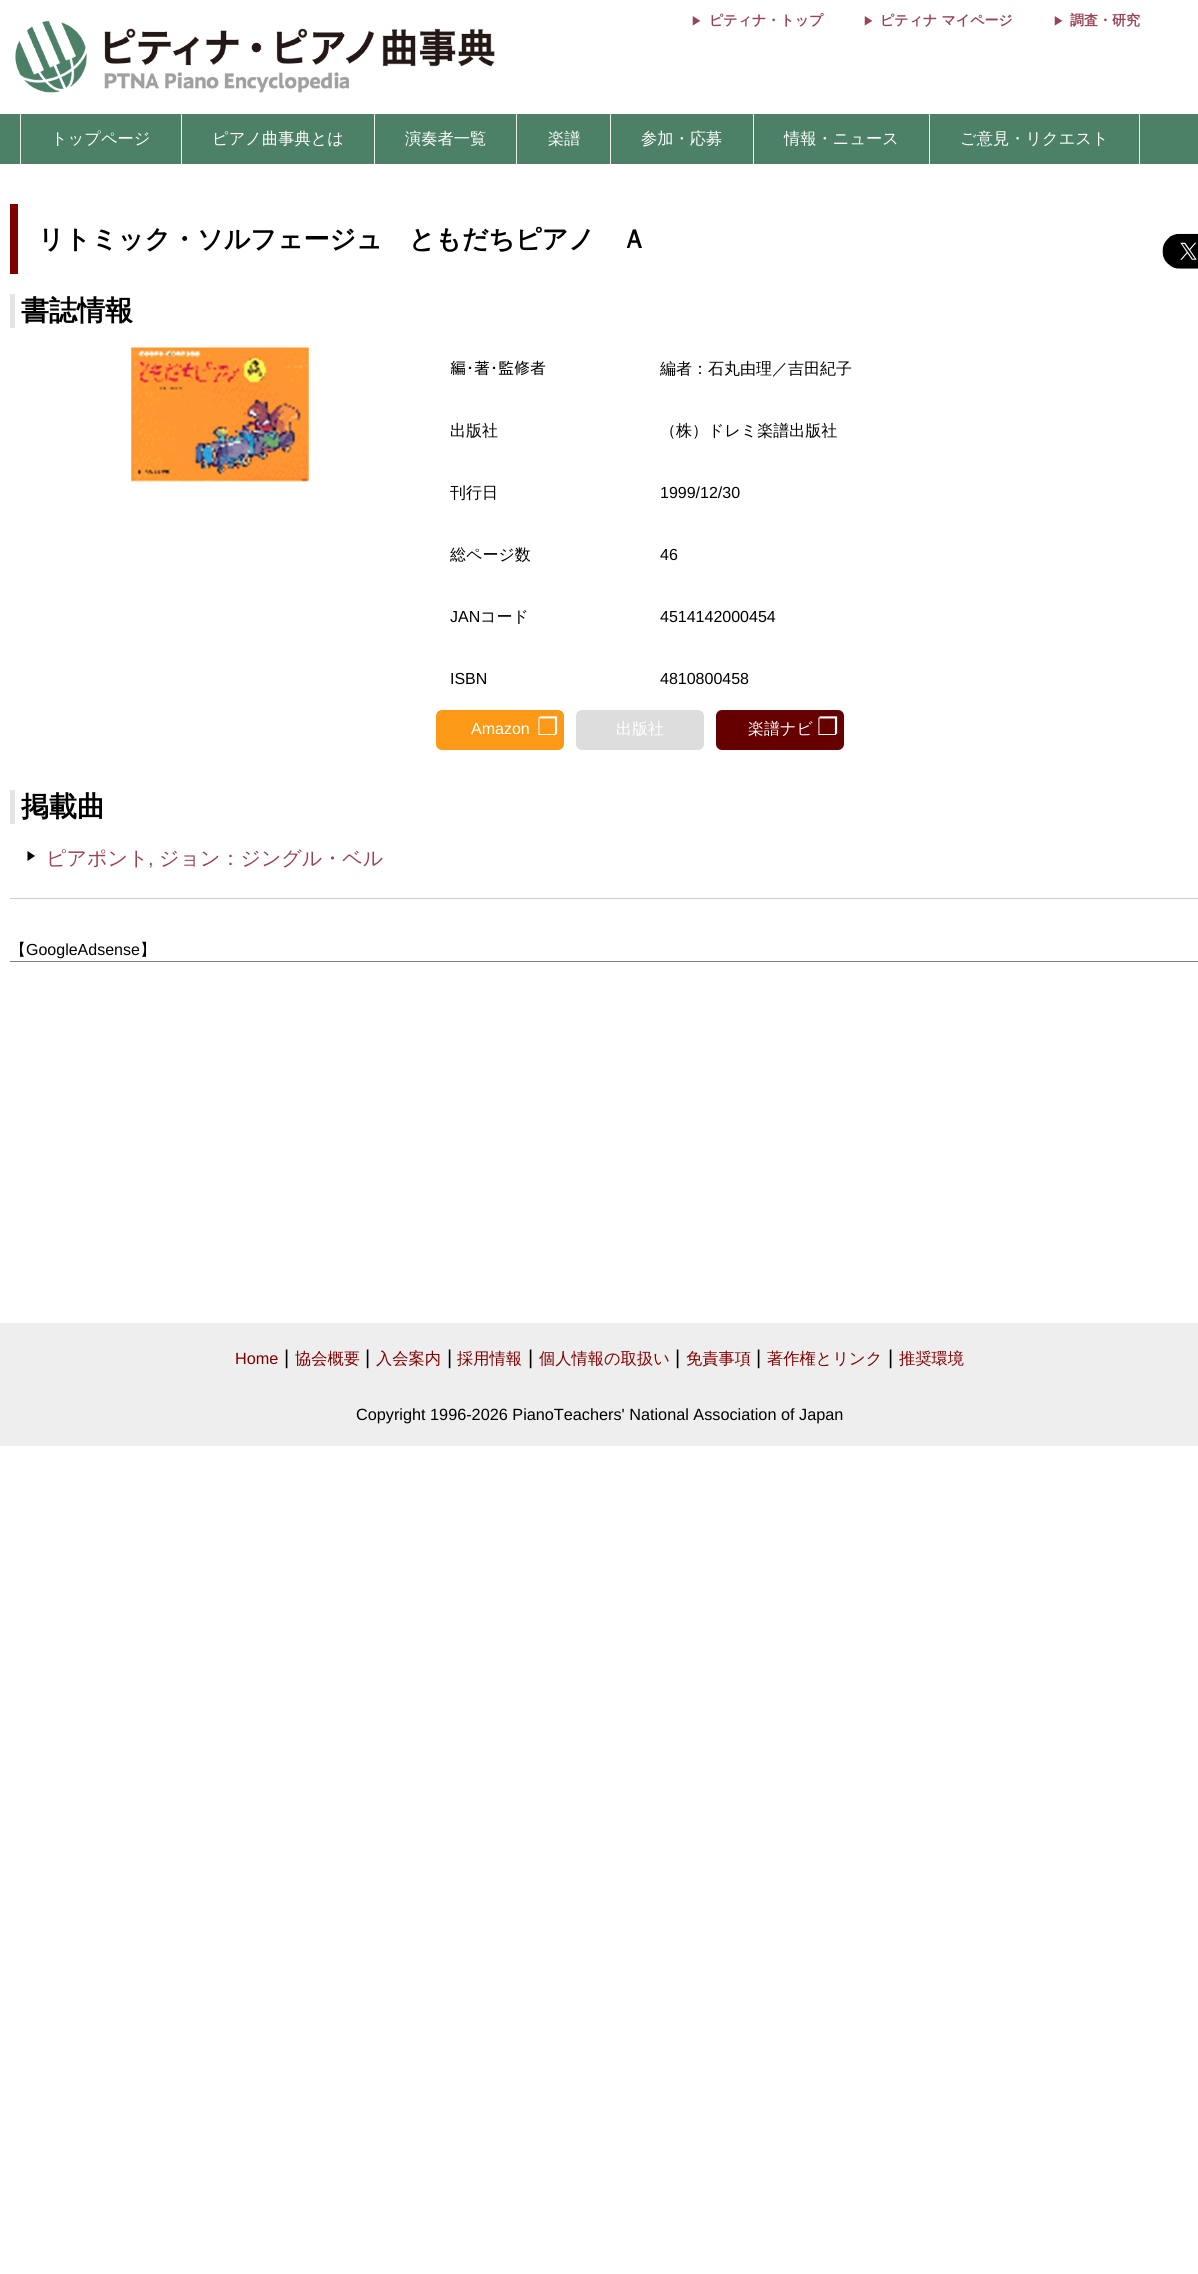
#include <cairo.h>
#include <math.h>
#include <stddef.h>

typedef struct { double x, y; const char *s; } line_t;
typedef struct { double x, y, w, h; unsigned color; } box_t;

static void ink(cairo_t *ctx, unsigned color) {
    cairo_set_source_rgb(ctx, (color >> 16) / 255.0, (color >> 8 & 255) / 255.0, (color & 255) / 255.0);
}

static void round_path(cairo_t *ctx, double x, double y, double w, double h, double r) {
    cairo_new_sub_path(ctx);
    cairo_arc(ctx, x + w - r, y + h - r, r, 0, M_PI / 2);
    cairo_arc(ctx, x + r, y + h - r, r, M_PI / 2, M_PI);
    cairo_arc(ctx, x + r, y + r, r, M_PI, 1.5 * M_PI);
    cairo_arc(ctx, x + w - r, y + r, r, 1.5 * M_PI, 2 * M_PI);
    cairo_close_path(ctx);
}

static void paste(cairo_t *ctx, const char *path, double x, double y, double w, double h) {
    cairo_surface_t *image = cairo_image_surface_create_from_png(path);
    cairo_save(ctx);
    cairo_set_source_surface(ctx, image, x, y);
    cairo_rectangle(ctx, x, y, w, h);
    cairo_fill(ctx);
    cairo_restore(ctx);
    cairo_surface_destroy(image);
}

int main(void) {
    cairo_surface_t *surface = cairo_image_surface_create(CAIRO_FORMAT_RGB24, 1198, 2274);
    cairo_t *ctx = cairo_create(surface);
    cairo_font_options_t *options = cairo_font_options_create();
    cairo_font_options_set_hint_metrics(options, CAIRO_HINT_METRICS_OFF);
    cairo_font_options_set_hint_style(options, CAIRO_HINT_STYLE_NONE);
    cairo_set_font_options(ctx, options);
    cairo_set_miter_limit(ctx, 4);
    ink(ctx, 0xFFFFFF);
    cairo_paint(ctx);
    paste(ctx, "media/1.png", 15, 20, 480, 73);
    cairo_select_font_face(ctx, "WenQuanYi Zen Hei", CAIRO_FONT_SLANT_NORMAL, CAIRO_FONT_WEIGHT_BOLD);
    cairo_set_font_size(ctx, 11);
    ink(ctx, 0x994455);
    cairo_move_to(ctx, 691, 25);
    cairo_show_text(ctx, "▶");
    cairo_set_font_size(ctx, 14);
    cairo_move_to(ctx, 709, 25);
    cairo_show_text(ctx, "ピティナ・トップ");
    cairo_set_font_size(ctx, 11);
    cairo_move_to(ctx, 863, 25);
    cairo_show_text(ctx, "▶");
    cairo_set_font_size(ctx, 14);
    cairo_move_to(ctx, 880, 25);
    cairo_show_text(ctx, "ピティナ マイページ");
    cairo_set_font_size(ctx, 11);
    cairo_move_to(ctx, 1053, 25);
    cairo_show_text(ctx, "▶");
    cairo_set_font_size(ctx, 14);
    cairo_move_to(ctx, 1070, 25);
    cairo_show_text(ctx, "調査・研究");
    {
        static const box_t items[] = {
            {0, 114, 1198, 50, 0x4C8167},
            {20, 114, 1, 50, 0xEEEEEE},
            {181, 114, 1, 50, 0xEEEEEE},
        };
        for (size_t i = 0; i < sizeof items / sizeof *items; i++) {
            ink(ctx, items[i].color);
            cairo_rectangle(ctx, items[i].x, items[i].y, items[i].w, items[i].h);
            cairo_fill(ctx);
        }
    }
    cairo_select_font_face(ctx, "WenQuanYi Zen Hei Medium", CAIRO_FONT_SLANT_NORMAL, CAIRO_FONT_WEIGHT_NORMAL);
    cairo_set_font_size(ctx, 16.25);
    ink(ctx, 0xFFFFFF);
    cairo_move_to(ctx, 51, 144);
    cairo_show_text(ctx, "トップページ");
    ink(ctx, 0xEEEEEE);
    cairo_rectangle(ctx, 374, 114, 1, 50);
    cairo_fill(ctx);
    ink(ctx, 0xFFFFFF);
    cairo_move_to(ctx, 212, 144);
    cairo_show_text(ctx, "ピアノ曲事典とは");
    ink(ctx, 0xEEEEEE);
    cairo_rectangle(ctx, 516, 114, 1, 50);
    cairo_fill(ctx);
    ink(ctx, 0xFFFFFF);
    cairo_move_to(ctx, 405, 144);
    cairo_show_text(ctx, "演奏者一覧");
    ink(ctx, 0xEEEEEE);
    cairo_rectangle(ctx, 610, 114, 1, 50);
    cairo_fill(ctx);
    ink(ctx, 0xFFFFFF);
    cairo_move_to(ctx, 548, 144);
    cairo_show_text(ctx, "楽譜");
    ink(ctx, 0xEEEEEE);
    cairo_rectangle(ctx, 753, 114, 1, 50);
    cairo_fill(ctx);
    ink(ctx, 0xFFFFFF);
    cairo_move_to(ctx, 641, 144);
    cairo_show_text(ctx, "参加・応募");
    ink(ctx, 0xEEEEEE);
    cairo_rectangle(ctx, 929, 114, 1, 50);
    cairo_fill(ctx);
    ink(ctx, 0xFFFFFF);
    cairo_move_to(ctx, 784, 144);
    cairo_show_text(ctx, "情報・ニュース");
    ink(ctx, 0xEEEEEE);
    cairo_rectangle(ctx, 1139, 114, 1, 50);
    cairo_fill(ctx);
    ink(ctx, 0xFFFFFF);
    cairo_move_to(ctx, 960, 144);
    cairo_show_text(ctx, "ご意見・リクエスト");
    ink(ctx, 0x800000);
    cairo_rectangle(ctx, 10, 204, 8, 70);
    cairo_fill(ctx);
    cairo_select_font_face(ctx, "WenQuanYi Zen Hei", CAIRO_FONT_SLANT_NORMAL, CAIRO_FONT_WEIGHT_BOLD);
    cairo_set_font_size(ctx, 26);
    ink(ctx, 0x000000);
    cairo_move_to(ctx, 38, 248);
    cairo_show_text(ctx, "リトミック・ソルフェージュ　ともだちピアノ　Ａ");
    paste(ctx, "media/2.png", 1162, 233, 36, 36);
    ink(ctx, 0xE5E5E5);
    cairo_rectangle(ctx, 10, 294, 5, 34);
    cairo_fill(ctx);
    cairo_set_font_size(ctx, 28);
    ink(ctx, 0x000000);
    cairo_move_to(ctx, 21, 320);
    cairo_show_text(ctx, "書誌情報");
    paste(ctx, "media/3.png", 131, 347, 178, 135);
    cairo_select_font_face(ctx, "IPAPGothic", CAIRO_FONT_SLANT_NORMAL, CAIRO_FONT_WEIGHT_NORMAL);
    cairo_set_font_size(ctx, 16);
    cairo_move_to(ctx, 450, 374);
    cairo_show_text(ctx, "編･著･監修者");
    cairo_select_font_face(ctx, "WenQuanYi Zen Hei Medium", CAIRO_FONT_SLANT_NORMAL, CAIRO_FONT_WEIGHT_NORMAL);
    {
        static const line_t items[] = {
            {660, 374, "編者：石丸由理／吉田紀子"},
            {450, 436, "出版社"},
            {660, 436, "（株）ドレミ楽譜出版社"},
            {450, 498, "刊行日"},
        };
        for (size_t i = 0; i < sizeof items / sizeof *items; i++) {
            cairo_move_to(ctx, items[i].x, items[i].y);
            cairo_show_text(ctx, items[i].s);
        }
    }
    cairo_select_font_face(ctx, "Liberation Sans", CAIRO_FONT_SLANT_NORMAL, CAIRO_FONT_WEIGHT_NORMAL);
    cairo_move_to(ctx, 660, 498);
    cairo_show_text(ctx, "1999/12/30");
    cairo_select_font_face(ctx, "WenQuanYi Zen Hei Medium", CAIRO_FONT_SLANT_NORMAL, CAIRO_FONT_WEIGHT_NORMAL);
    cairo_move_to(ctx, 450, 560);
    cairo_show_text(ctx, "総ページ数");
    cairo_select_font_face(ctx, "Liberation Sans", CAIRO_FONT_SLANT_NORMAL, CAIRO_FONT_WEIGHT_NORMAL);
    cairo_move_to(ctx, 660, 560);
    cairo_show_text(ctx, "46");
    cairo_move_to(ctx, 450, 622);
    cairo_show_text(ctx, "JAN");
    cairo_select_font_face(ctx, "WenQuanYi Zen Hei Medium", CAIRO_FONT_SLANT_NORMAL, CAIRO_FONT_WEIGHT_NORMAL);
    cairo_move_to(ctx, 480, 622);
    cairo_show_text(ctx, "コード");
    cairo_select_font_face(ctx, "Liberation Sans", CAIRO_FONT_SLANT_NORMAL, CAIRO_FONT_WEIGHT_NORMAL);
    {
        static const line_t items[] = {
            {660, 622, "4514142000454"},
            {450, 684, "ISBN"},
            {660, 684, "4810800458"},
        };
        for (size_t i = 0; i < sizeof items / sizeof *items; i++) {
            cairo_move_to(ctx, items[i].x, items[i].y);
            cairo_show_text(ctx, items[i].s);
        }
    }
    ink(ctx, 0xFC9A18);
    round_path(ctx, 436, 710, 128, 40, 6);
    cairo_fill(ctx);
    ink(ctx, 0xFFFFFF);
    cairo_move_to(ctx, 471, 734);
    cairo_show_text(ctx, "Amazon");
    cairo_select_font_face(ctx, "DejaVu Sans", CAIRO_FONT_SLANT_NORMAL, CAIRO_FONT_WEIGHT_NORMAL);
    cairo_set_font_size(ctx, 24);
    cairo_move_to(ctx, 537, 735);
    cairo_show_text(ctx, "❐");
    ink(ctx, 0xDDDDDD);
    round_path(ctx, 576, 710, 128, 40, 6);
    cairo_fill(ctx);
    cairo_select_font_face(ctx, "WenQuanYi Zen Hei Medium", CAIRO_FONT_SLANT_NORMAL, CAIRO_FONT_WEIGHT_NORMAL);
    cairo_set_font_size(ctx, 16);
    ink(ctx, 0xFFFFFF);
    cairo_move_to(ctx, 616, 734);
    cairo_show_text(ctx, "出版社");
    ink(ctx, 0x660000);
    round_path(ctx, 716, 710, 128, 40, 6);
    cairo_fill(ctx);
    ink(ctx, 0xFFFFFF);
    cairo_move_to(ctx, 748, 734);
    cairo_show_text(ctx, "楽譜ナビ");
    cairo_select_font_face(ctx, "DejaVu Sans", CAIRO_FONT_SLANT_NORMAL, CAIRO_FONT_WEIGHT_NORMAL);
    cairo_set_font_size(ctx, 24);
    cairo_move_to(ctx, 817, 735);
    cairo_show_text(ctx, "❐");
    ink(ctx, 0xE5E5E5);
    cairo_rectangle(ctx, 10, 790, 5, 34);
    cairo_fill(ctx);
    cairo_select_font_face(ctx, "WenQuanYi Zen Hei", CAIRO_FONT_SLANT_NORMAL, CAIRO_FONT_WEIGHT_BOLD);
    cairo_set_font_size(ctx, 28);
    ink(ctx, 0x000000);
    cairo_move_to(ctx, 21, 816);
    cairo_show_text(ctx, "掲載曲");
    ink(ctx, 0xCCCCCC);
    cairo_rectangle(ctx, 10, 898, 1188, 1);
    cairo_fill(ctx);
    ink(ctx, 0x000000);
    cairo_new_path(ctx);
    cairo_move_to(ctx, 27.5, 861);
    cairo_line_to(ctx, 27.5, 851);
    cairo_line_to(ctx, 35, 856);
    cairo_close_path(ctx);
    cairo_fill(ctx);
    cairo_select_font_face(ctx, "WenQuanYi Zen Hei Medium", CAIRO_FONT_SLANT_NORMAL, CAIRO_FONT_WEIGHT_NORMAL);
    cairo_set_font_size(ctx, 20);
    ink(ctx, 0x994455);
    cairo_move_to(ctx, 46, 865);
    cairo_show_text(ctx, "ピアポント");
    cairo_select_font_face(ctx, "Liberation Sans", CAIRO_FONT_SLANT_NORMAL, CAIRO_FONT_WEIGHT_NORMAL);
    cairo_move_to(ctx, 148, 865);
    cairo_show_text(ctx, ",");
    cairo_select_font_face(ctx, "WenQuanYi Zen Hei Medium", CAIRO_FONT_SLANT_NORMAL, CAIRO_FONT_WEIGHT_NORMAL);
    cairo_move_to(ctx, 159, 865);
    cairo_show_text(ctx, "ジョン：ジングル・ベル");
    ink(ctx, 0x808080);
    cairo_rectangle(ctx, 10, 961, 1188, 1);
    cairo_fill(ctx);
    cairo_set_font_size(ctx, 16);
    ink(ctx, 0x000000);
    cairo_move_to(ctx, 10, 955);
    cairo_show_text(ctx, "【");
    cairo_select_font_face(ctx, "Liberation Sans", CAIRO_FONT_SLANT_NORMAL, CAIRO_FONT_WEIGHT_NORMAL);
    cairo_move_to(ctx, 26, 955);
    cairo_show_text(ctx, "GoogleAdsense");
    cairo_select_font_face(ctx, "WenQuanYi Zen Hei Medium", CAIRO_FONT_SLANT_NORMAL, CAIRO_FONT_WEIGHT_NORMAL);
    cairo_move_to(ctx, 140, 955);
    cairo_show_text(ctx, "】");
    ink(ctx, 0xEEEEEE);
    cairo_rectangle(ctx, 0, 1323, 1198, 123);
    cairo_fill(ctx);
    cairo_select_font_face(ctx, "Liberation Sans", CAIRO_FONT_SLANT_NORMAL, CAIRO_FONT_WEIGHT_NORMAL);
    cairo_set_font_size(ctx, 16.25);
    ink(ctx, 0x800000);
    cairo_move_to(ctx, 235, 1364);
    cairo_show_text(ctx, "Home");
    cairo_set_font_size(ctx, 20);
    ink(ctx, 0x000000);
    cairo_move_to(ctx, 284, 1364);
    cairo_show_text(ctx, "|");
    cairo_select_font_face(ctx, "WenQuanYi Zen Hei Medium", CAIRO_FONT_SLANT_NORMAL, CAIRO_FONT_WEIGHT_NORMAL);
    cairo_set_font_size(ctx, 16.25);
    ink(ctx, 0x800000);
    cairo_move_to(ctx, 295, 1364);
    cairo_show_text(ctx, "協会概要");
    cairo_select_font_face(ctx, "Liberation Sans", CAIRO_FONT_SLANT_NORMAL, CAIRO_FONT_WEIGHT_NORMAL);
    cairo_set_font_size(ctx, 20);
    ink(ctx, 0x000000);
    cairo_move_to(ctx, 365, 1364);
    cairo_show_text(ctx, "|");
    cairo_select_font_face(ctx, "WenQuanYi Zen Hei Medium", CAIRO_FONT_SLANT_NORMAL, CAIRO_FONT_WEIGHT_NORMAL);
    cairo_set_font_size(ctx, 16.25);
    ink(ctx, 0x800000);
    cairo_move_to(ctx, 376, 1364);
    cairo_show_text(ctx, "入会案内");
    cairo_select_font_face(ctx, "Liberation Sans", CAIRO_FONT_SLANT_NORMAL, CAIRO_FONT_WEIGHT_NORMAL);
    cairo_set_font_size(ctx, 20);
    ink(ctx, 0x000000);
    cairo_move_to(ctx, 447, 1364);
    cairo_show_text(ctx, "|");
    cairo_select_font_face(ctx, "WenQuanYi Zen Hei Medium", CAIRO_FONT_SLANT_NORMAL, CAIRO_FONT_WEIGHT_NORMAL);
    cairo_set_font_size(ctx, 16.25);
    ink(ctx, 0x800000);
    cairo_move_to(ctx, 457, 1364);
    cairo_show_text(ctx, "採用情報");
    cairo_select_font_face(ctx, "Liberation Sans", CAIRO_FONT_SLANT_NORMAL, CAIRO_FONT_WEIGHT_NORMAL);
    cairo_set_font_size(ctx, 20);
    ink(ctx, 0x000000);
    cairo_move_to(ctx, 528, 1364);
    cairo_show_text(ctx, "|");
    cairo_select_font_face(ctx, "WenQuanYi Zen Hei Medium", CAIRO_FONT_SLANT_NORMAL, CAIRO_FONT_WEIGHT_NORMAL);
    cairo_set_font_size(ctx, 16.25);
    ink(ctx, 0x800000);
    cairo_move_to(ctx, 539, 1364);
    cairo_show_text(ctx, "個人情報の取扱い");
    cairo_select_font_face(ctx, "Liberation Sans", CAIRO_FONT_SLANT_NORMAL, CAIRO_FONT_WEIGHT_NORMAL);
    cairo_set_font_size(ctx, 20);
    ink(ctx, 0x000000);
    cairo_move_to(ctx, 675, 1364);
    cairo_show_text(ctx, "|");
    cairo_select_font_face(ctx, "WenQuanYi Zen Hei Medium", CAIRO_FONT_SLANT_NORMAL, CAIRO_FONT_WEIGHT_NORMAL);
    cairo_set_font_size(ctx, 16.25);
    ink(ctx, 0x800000);
    cairo_move_to(ctx, 686, 1364);
    cairo_show_text(ctx, "免責事項");
    cairo_select_font_face(ctx, "Liberation Sans", CAIRO_FONT_SLANT_NORMAL, CAIRO_FONT_WEIGHT_NORMAL);
    cairo_set_font_size(ctx, 20);
    ink(ctx, 0x000000);
    cairo_move_to(ctx, 756, 1364);
    cairo_show_text(ctx, "|");
    cairo_select_font_face(ctx, "WenQuanYi Zen Hei Medium", CAIRO_FONT_SLANT_NORMAL, CAIRO_FONT_WEIGHT_NORMAL);
    cairo_set_font_size(ctx, 16.25);
    ink(ctx, 0x800000);
    cairo_move_to(ctx, 767, 1364);
    cairo_show_text(ctx, "著作権とリンク");
    cairo_select_font_face(ctx, "Liberation Sans", CAIRO_FONT_SLANT_NORMAL, CAIRO_FONT_WEIGHT_NORMAL);
    cairo_set_font_size(ctx, 20);
    ink(ctx, 0x000000);
    cairo_move_to(ctx, 888, 1364);
    cairo_show_text(ctx, "|");
    cairo_select_font_face(ctx, "WenQuanYi Zen Hei Medium", CAIRO_FONT_SLANT_NORMAL, CAIRO_FONT_WEIGHT_NORMAL);
    cairo_set_font_size(ctx, 16.25);
    ink(ctx, 0x800000);
    cairo_move_to(ctx, 899, 1364);
    cairo_show_text(ctx, "推奨環境");
    cairo_select_font_face(ctx, "Liberation Sans", CAIRO_FONT_SLANT_NORMAL, CAIRO_FONT_WEIGHT_NORMAL);
    ink(ctx, 0x000000);
    cairo_move_to(ctx, 356, 1420);
    cairo_show_text(ctx, "Copyright 1996-2026 PianoTeachers' National Association of Japan");
    cairo_surface_write_to_png(surface, "image.png");
    cairo_font_options_destroy(options);
    cairo_destroy(ctx);
    cairo_surface_destroy(surface);
    return 0;
}
